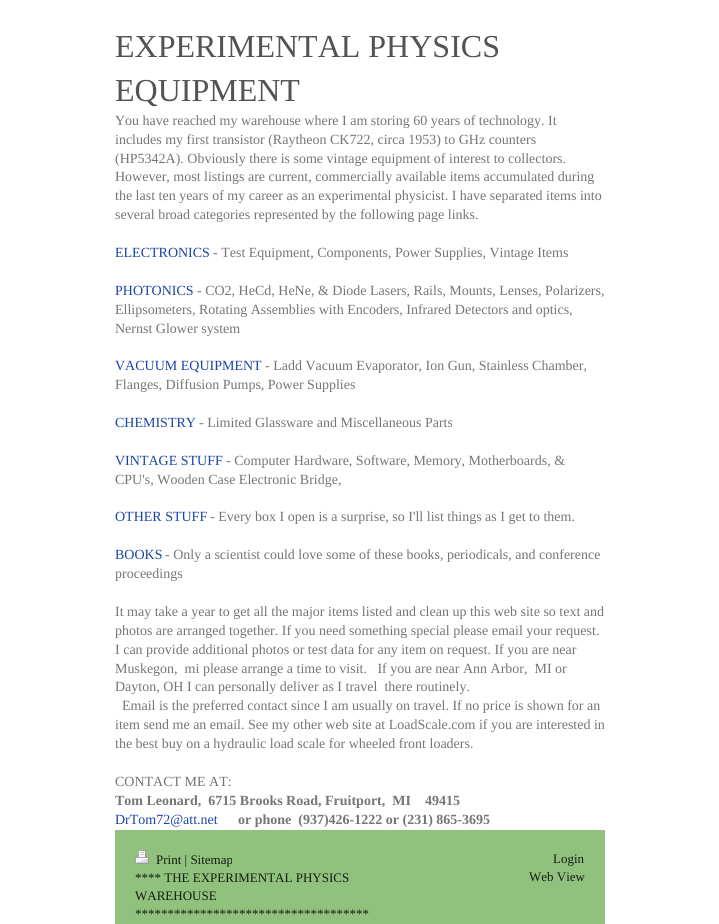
#include <cairo.h>
#include <math.h>
#include <stddef.h>

typedef struct { double x, y; const char *s; } line_t;

static void ink(cairo_t *ctx, unsigned color) {
    cairo_set_source_rgb(ctx, (color >> 16) / 255.0, (color >> 8 & 255) / 255.0, (color & 255) / 255.0);
}

static void paste(cairo_t *ctx, const char *path, double x, double y, double w, double h) {
    cairo_surface_t *image = cairo_image_surface_create_from_png(path);
    cairo_save(ctx);
    cairo_set_source_surface(ctx, image, x, y);
    cairo_rectangle(ctx, x, y, w, h);
    cairo_fill(ctx);
    cairo_restore(ctx);
    cairo_surface_destroy(image);
}

int main(void) {
    cairo_surface_t *surface = cairo_image_surface_create(CAIRO_FORMAT_RGB24, 719, 924);
    cairo_t *ctx = cairo_create(surface);
    cairo_font_options_t *options = cairo_font_options_create();
    cairo_font_options_set_hint_metrics(options, CAIRO_HINT_METRICS_OFF);
    cairo_font_options_set_hint_style(options, CAIRO_HINT_STYLE_NONE);
    cairo_set_font_options(ctx, options);
    cairo_set_miter_limit(ctx, 4);
    ink(ctx, 0xFFFFFF);
    cairo_paint(ctx);
    cairo_select_font_face(ctx, "Liberation Serif", CAIRO_FONT_SLANT_NORMAL, CAIRO_FONT_WEIGHT_NORMAL);
    cairo_set_font_size(ctx, 32);
    ink(ctx, 0x535353);
    cairo_move_to(ctx, 115, 57);
    cairo_show_text(ctx, "EXPERIMENTAL PHYSICS");
    cairo_move_to(ctx, 115, 101);
    cairo_show_text(ctx, "EQUIPMENT");
    cairo_set_font_size(ctx, 14);
    ink(ctx, 0x757575);
    {
        static const line_t items[] = {
            {115, 125, "You have reached my warehouse where I am storing 60 years of technology. It"},
            {115, 144, "includes my first transistor (Raytheon CK722, circa 1953) to GHz counters"},
            {115, 163, "(HP5342A). Obviously there is some vintage equipment of interest to collectors."},
            {115, 181, "However, most listings are current, commercially available items accumulated during"},
            {115, 200, "the last ten years of my career as an experimental physicist. I have separated items into"},
            {115, 219, "several broad categories represented by the following page links."},
        };
        for (size_t i = 0; i < sizeof items / sizeof *items; i++) {
            cairo_move_to(ctx, items[i].x, items[i].y);
            cairo_show_text(ctx, items[i].s);
        }
    }
    ink(ctx, 0x1A44A4);
    cairo_move_to(ctx, 115, 257);
    cairo_show_text(ctx, "ELECTRONICS");
    ink(ctx, 0x757575);
    cairo_move_to(ctx, 213, 257);
    cairo_show_text(ctx, "- Test Equipment, Components, Power Supplies, Vintage Items");
    ink(ctx, 0x1A44A4);
    cairo_move_to(ctx, 115, 295);
    cairo_show_text(ctx, "PHOTONICS");
    ink(ctx, 0x757575);
    {
        static const line_t items[] = {
            {197, 295, "- CO2, HeCd, HeNe, & Diode Lasers, Rails, Mounts, Lenses, Polarizers,"},
            {115, 314, "Ellipsometers, Rotating Assemblies with Encoders, Infrared Detectors and optics,"},
            {115, 333, "Nernst Glower system"},
        };
        for (size_t i = 0; i < sizeof items / sizeof *items; i++) {
            cairo_move_to(ctx, items[i].x, items[i].y);
            cairo_show_text(ctx, items[i].s);
        }
    }
    ink(ctx, 0x1A44A4);
    cairo_move_to(ctx, 115, 370);
    cairo_show_text(ctx, "VACUUM EQUIPMENT");
    ink(ctx, 0x757575);
    cairo_move_to(ctx, 265, 370);
    cairo_show_text(ctx, "- Ladd Vacuum Evaporator, Ion Gun, Stainless Chamber,");
    cairo_move_to(ctx, 115, 389);
    cairo_show_text(ctx, "Flanges, Diffusion Pumps, Power Supplies");
    ink(ctx, 0x1A44A4);
    cairo_move_to(ctx, 115, 427);
    cairo_show_text(ctx, "CHEMISTRY");
    ink(ctx, 0x757575);
    cairo_move_to(ctx, 199, 427);
    cairo_show_text(ctx, "- Limited Glassware and Miscellaneous Parts");
    ink(ctx, 0x1A44A4);
    cairo_move_to(ctx, 115, 465);
    cairo_show_text(ctx, "VINTAGE STUFF");
    ink(ctx, 0x757575);
    cairo_move_to(ctx, 226, 465);
    cairo_show_text(ctx, "- Computer Hardware, Software, Memory, Motherboards, &");
    cairo_move_to(ctx, 115, 484);
    cairo_show_text(ctx, "CPU's, Wooden Case Electronic Bridge,");
    ink(ctx, 0x1A44A4);
    cairo_move_to(ctx, 115, 521);
    cairo_show_text(ctx, "OTHER STUFF");
    ink(ctx, 0x757575);
    cairo_move_to(ctx, 210, 521);
    cairo_show_text(ctx, "- Every box I open is a surprise, so I'll list things as I get to them.");
    ink(ctx, 0x1A44A4);
    cairo_move_to(ctx, 115, 559);
    cairo_show_text(ctx, "BOOKS");
    ink(ctx, 0x757575);
    {
        static const line_t items[] = {
            {165, 559, "- Only a scientist could love some of these books, periodicals, and conference"},
            {115, 578, "proceedings"},
            {115, 616, "It may take a year to get all the major items listed and clean up this web site so text and"},
            {115, 635, "photos are arranged together. If you need something special please email your request."},
            {115, 654, "I can provide additional photos or test data for any item on request. If you are near"},
            {115, 673, "Muskegon,  mi please arrange a time to visit.   If you are near Ann Arbor,  MI or"},
            {115, 691, "Dayton, OH I can personally deliver as I travel  there routinely."},
            {122, 710, "Email is the preferred contact since I am usually on travel. If no price is shown for an"},
            {115, 729, "item send me an email. See my other web site at LoadScale.com if you are interested in"},
            {115, 748, "the best buy on a hydraulic load scale for wheeled front loaders."},
            {115, 786, "CONTACT ME AT:"},
        };
        for (size_t i = 0; i < sizeof items / sizeof *items; i++) {
            cairo_move_to(ctx, items[i].x, items[i].y);
            cairo_show_text(ctx, items[i].s);
        }
    }
    cairo_select_font_face(ctx, "Liberation Serif", CAIRO_FONT_SLANT_NORMAL, CAIRO_FONT_WEIGHT_BOLD);
    cairo_move_to(ctx, 115, 805);
    cairo_show_text(ctx, "Tom Leonard,  6715 Brooks Road, Fruitport,  MI    49415");
    cairo_select_font_face(ctx, "Liberation Serif", CAIRO_FONT_SLANT_NORMAL, CAIRO_FONT_WEIGHT_NORMAL);
    ink(ctx, 0x1A44A4);
    cairo_move_to(ctx, 115, 824);
    cairo_show_text(ctx, "DrTom72@att.net");
    cairo_select_font_face(ctx, "Liberation Serif", CAIRO_FONT_SLANT_NORMAL, CAIRO_FONT_WEIGHT_BOLD);
    ink(ctx, 0x757575);
    cairo_move_to(ctx, 238, 824);
    cairo_show_text(ctx, "or phone  (937)426-1222 or (231) 865-3695");
    ink(ctx, 0x90C27E);
    cairo_rectangle(ctx, 115, 830, 490, 94);
    cairo_fill(ctx);
    paste(ctx, "media/1.png", 135, 850, 14, 14);
    cairo_select_font_face(ctx, "Liberation Serif", CAIRO_FONT_SLANT_NORMAL, CAIRO_FONT_WEIGHT_NORMAL);
    cairo_set_font_size(ctx, 13);
    ink(ctx, 0x141C11);
    {
        static const line_t items[] = {
            {156, 864, "Print | Sitemap"},
            {135, 882, "**** THE EXPERIMENTAL PHYSICS"},
            {135, 900, "WAREHOUSE"},
            {135, 918, "************************************"},
            {553, 863, "Login"},
            {529, 881, "Web View"},
        };
        for (size_t i = 0; i < sizeof items / sizeof *items; i++) {
            cairo_move_to(ctx, items[i].x, items[i].y);
            cairo_show_text(ctx, items[i].s);
        }
    }
    cairo_surface_write_to_png(surface, "image.png");
    cairo_font_options_destroy(options);
    cairo_destroy(ctx);
    cairo_surface_destroy(surface);
    return 0;
}
